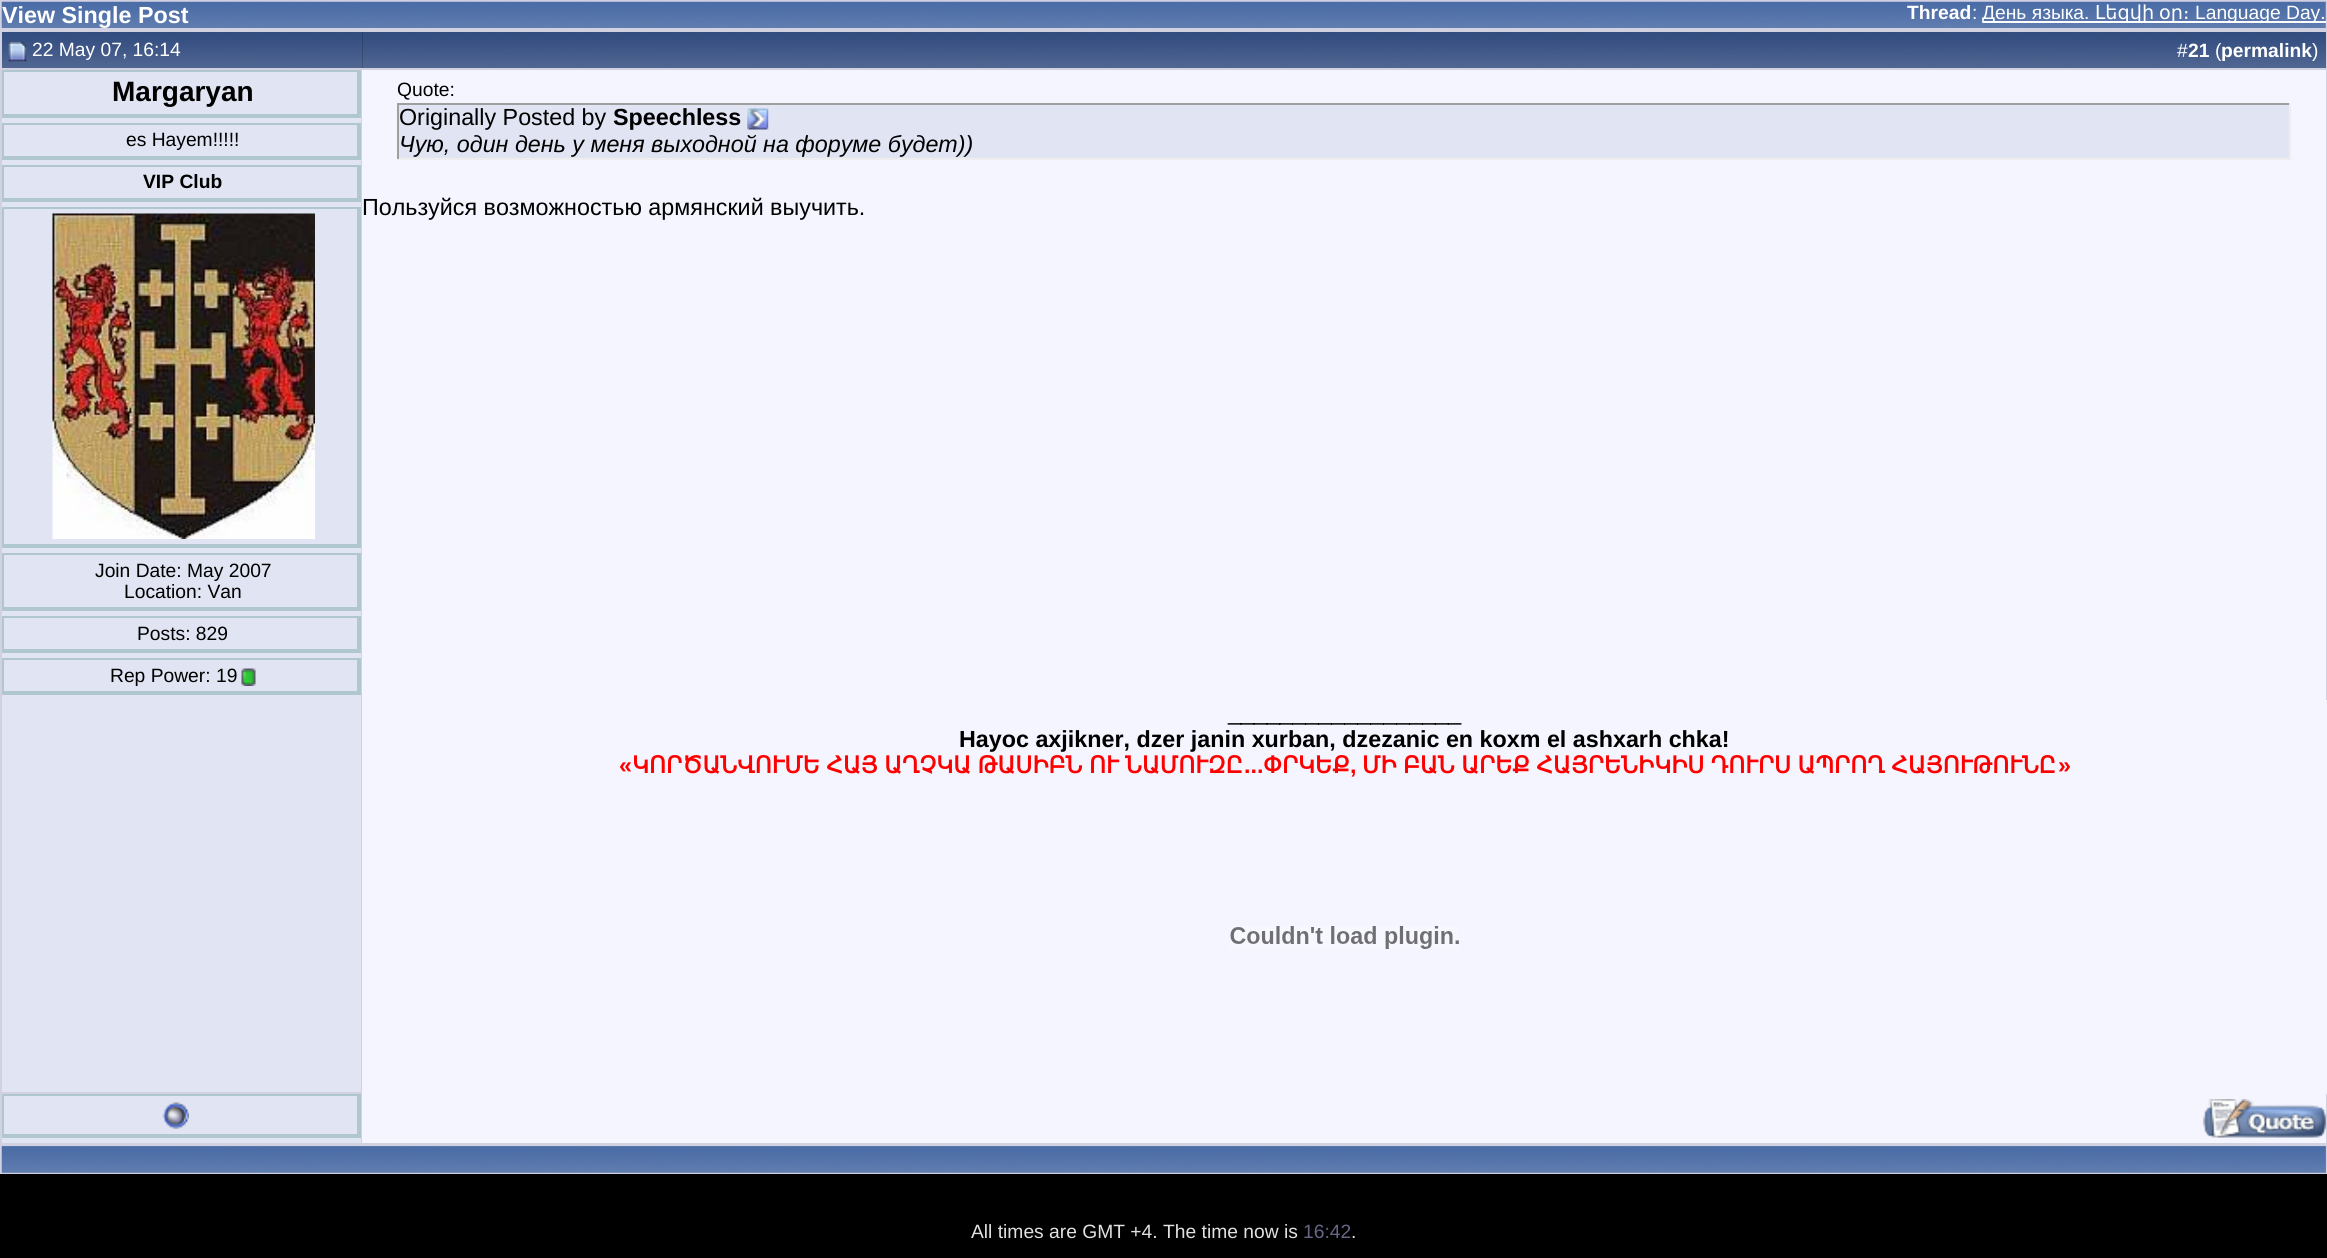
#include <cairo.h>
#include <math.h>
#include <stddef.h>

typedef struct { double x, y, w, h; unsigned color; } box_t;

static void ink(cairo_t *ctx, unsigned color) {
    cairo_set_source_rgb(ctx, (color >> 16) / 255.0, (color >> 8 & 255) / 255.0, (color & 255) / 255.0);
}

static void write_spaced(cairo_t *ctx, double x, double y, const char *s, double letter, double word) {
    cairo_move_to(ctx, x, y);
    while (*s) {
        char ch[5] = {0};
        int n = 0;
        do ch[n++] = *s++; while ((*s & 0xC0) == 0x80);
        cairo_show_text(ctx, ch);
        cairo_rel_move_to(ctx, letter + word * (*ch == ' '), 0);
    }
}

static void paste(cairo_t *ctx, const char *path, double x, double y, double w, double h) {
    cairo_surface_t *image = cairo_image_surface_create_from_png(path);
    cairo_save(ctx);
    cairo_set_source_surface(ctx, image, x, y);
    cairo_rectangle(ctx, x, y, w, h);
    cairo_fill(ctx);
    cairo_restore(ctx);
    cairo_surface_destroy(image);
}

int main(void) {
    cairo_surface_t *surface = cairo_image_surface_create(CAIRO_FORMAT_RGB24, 2327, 1258);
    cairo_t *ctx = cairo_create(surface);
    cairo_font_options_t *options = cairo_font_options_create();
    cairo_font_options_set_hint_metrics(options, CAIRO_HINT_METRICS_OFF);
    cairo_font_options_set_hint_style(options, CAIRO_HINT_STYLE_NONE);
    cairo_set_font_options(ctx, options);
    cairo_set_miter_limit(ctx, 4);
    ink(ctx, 0x000000);
    cairo_paint(ctx);
    ink(ctx, 0xD1D1E1);
    cairo_rectangle(ctx, 0, 0, 2327, 30);
    cairo_fill(ctx);
    paste(ctx, "media/1.png", 1, 1, 2325, 27);
    cairo_select_font_face(ctx, "Liberation Sans", CAIRO_FONT_SLANT_NORMAL, CAIRO_FONT_WEIGHT_BOLD);
    cairo_set_font_size(ctx, 23.3);
    ink(ctx, 0xFFFFFF);
    cairo_move_to(ctx, 2, 23);
    cairo_show_text(ctx, "View Single Post");
    cairo_set_font_size(ctx, 19.25);
    cairo_move_to(ctx, 1907, 19);
    cairo_show_text(ctx, "Thread");
    cairo_select_font_face(ctx, "Liberation Sans", CAIRO_FONT_SLANT_NORMAL, CAIRO_FONT_WEIGHT_NORMAL);
    cairo_move_to(ctx, 1972, 19);
    cairo_show_text(ctx, ":");
    cairo_rectangle(ctx, 1983, 21, 343, 2);
    cairo_fill(ctx);
    cairo_move_to(ctx, 1982, 19);
    cairo_show_text(ctx, "День языка.");
    cairo_select_font_face(ctx, "DejaVu Sans", CAIRO_FONT_SLANT_NORMAL, CAIRO_FONT_WEIGHT_NORMAL);
    cairo_move_to(ctx, 2095, 19);
    cairo_show_text(ctx, "Լեզվի");
    cairo_move_to(ctx, 2159, 19);
    cairo_show_text(ctx, "օր։");
    cairo_select_font_face(ctx, "Liberation Sans", CAIRO_FONT_SLANT_NORMAL, CAIRO_FONT_WEIGHT_NORMAL);
    cairo_move_to(ctx, 2195, 19);
    cairo_show_text(ctx, "Language Day.");
    paste(ctx, "media/2.png", 2, 32, 361, 36);
    {
        static const box_t items[] = {
            {0, 30, 2327, 2, 0xD1D1E1},
            {0, 68, 362, 2, 0xD1D1E1},
            {0, 30, 2, 670, 0xD1D1E1},
        };
        for (size_t i = 0; i < sizeof items / sizeof *items; i++) {
            ink(ctx, items[i].color);
            cairo_rectangle(ctx, items[i].x, items[i].y, items[i].w, items[i].h);
            cairo_fill(ctx);
        }
    }
    paste(ctx, "media/3.png", 8, 42, 19, 20);
    ink(ctx, 0xFFFFFF);
    cairo_move_to(ctx, 32, 56);
    cairo_show_text(ctx, "22 May 07, 16:14");
    paste(ctx, "media/4.png", 362, 32, 1964, 36);
    ink(ctx, 0xD1D1E1);
    cairo_rectangle(ctx, 2326, 30, 1, 670);
    cairo_fill(ctx);
    cairo_rectangle(ctx, 362, 68, 1965, 2);
    cairo_fill(ctx);
    ink(ctx, 0xFFFFFF);
    cairo_move_to(ctx, 2177, 57);
    cairo_show_text(ctx, "#");
    cairo_select_font_face(ctx, "Liberation Sans", CAIRO_FONT_SLANT_NORMAL, CAIRO_FONT_WEIGHT_BOLD);
    cairo_move_to(ctx, 2188, 57);
    cairo_show_text(ctx, "21");
    cairo_select_font_face(ctx, "Liberation Sans", CAIRO_FONT_SLANT_NORMAL, CAIRO_FONT_WEIGHT_NORMAL);
    cairo_move_to(ctx, 2215, 57);
    cairo_show_text(ctx, "(");
    cairo_select_font_face(ctx, "Liberation Sans", CAIRO_FONT_SLANT_NORMAL, CAIRO_FONT_WEIGHT_BOLD);
    cairo_move_to(ctx, 2221, 57);
    cairo_show_text(ctx, "permalink");
    cairo_select_font_face(ctx, "Liberation Sans", CAIRO_FONT_SLANT_NORMAL, CAIRO_FONT_WEIGHT_NORMAL);
    cairo_move_to(ctx, 2312, 57);
    cairo_show_text(ctx, ")");
    {
        static const box_t items[] = {
            {2, 72, 359, 1020, 0xE1E4F2},
            {361, 70, 1, 1075, 0xD1D1E1},
            {2, 70, 359, 2, 0xB1C7CF},
            {357, 70, 4, 47, 0xB1C7CF},
            {2, 114, 359, 4, 0xB1C7CF},
            {2, 70, 2, 47, 0xB1C7CF},
        };
        for (size_t i = 0; i < sizeof items / sizeof *items; i++) {
            ink(ctx, items[i].color);
            cairo_rectangle(ctx, items[i].x, items[i].y, items[i].w, items[i].h);
            cairo_fill(ctx);
        }
    }
    cairo_select_font_face(ctx, "Liberation Sans", CAIRO_FONT_SLANT_NORMAL, CAIRO_FONT_WEIGHT_BOLD);
    cairo_set_font_size(ctx, 28);
    ink(ctx, 0x000000);
    cairo_move_to(ctx, 112, 101);
    cairo_show_text(ctx, "Margaryan");
    {
        static const box_t items[] = {
            {2, 123, 359, 2, 0xB1C7CF},
            {357, 123, 4, 36, 0xB1C7CF},
            {2, 156, 359, 4, 0xB1C7CF},
            {2, 123, 2, 36, 0xB1C7CF},
        };
        for (size_t i = 0; i < sizeof items / sizeof *items; i++) {
            ink(ctx, items[i].color);
            cairo_rectangle(ctx, items[i].x, items[i].y, items[i].w, items[i].h);
            cairo_fill(ctx);
        }
    }
    cairo_select_font_face(ctx, "Liberation Sans", CAIRO_FONT_SLANT_NORMAL, CAIRO_FONT_WEIGHT_NORMAL);
    cairo_set_font_size(ctx, 19.25);
    ink(ctx, 0x000000);
    cairo_move_to(ctx, 126, 146);
    cairo_show_text(ctx, "es Hayem!!!!!");
    {
        static const box_t items[] = {
            {2, 165, 359, 2, 0xB1C7CF},
            {357, 165, 4, 36, 0xB1C7CF},
            {2, 198, 359, 4, 0xB1C7CF},
            {2, 165, 2, 36, 0xB1C7CF},
        };
        for (size_t i = 0; i < sizeof items / sizeof *items; i++) {
            ink(ctx, items[i].color);
            cairo_rectangle(ctx, items[i].x, items[i].y, items[i].w, items[i].h);
            cairo_fill(ctx);
        }
    }
    cairo_select_font_face(ctx, "Liberation Sans", CAIRO_FONT_SLANT_NORMAL, CAIRO_FONT_WEIGHT_BOLD);
    ink(ctx, 0x000000);
    cairo_move_to(ctx, 143, 188);
    cairo_show_text(ctx, "VIP Club");
    {
        static const box_t items[] = {
            {2, 207, 359, 2, 0xB1C7CF},
            {357, 207, 4, 341, 0xB1C7CF},
            {2, 544, 359, 4, 0xB1C7CF},
            {2, 207, 2, 341, 0xB1C7CF},
        };
        for (size_t i = 0; i < sizeof items / sizeof *items; i++) {
            ink(ctx, items[i].color);
            cairo_rectangle(ctx, items[i].x, items[i].y, items[i].w, items[i].h);
            cairo_fill(ctx);
        }
    }
    paste(ctx, "media/5.png", 52, 213, 263, 326);
    {
        static const box_t items[] = {
            {2, 553, 359, 2, 0xB1C7CF},
            {357, 553, 4, 58, 0xB1C7CF},
            {2, 607, 359, 4, 0xB1C7CF},
            {2, 553, 2, 58, 0xB1C7CF},
        };
        for (size_t i = 0; i < sizeof items / sizeof *items; i++) {
            ink(ctx, items[i].color);
            cairo_rectangle(ctx, items[i].x, items[i].y, items[i].w, items[i].h);
            cairo_fill(ctx);
        }
    }
    cairo_select_font_face(ctx, "Liberation Sans", CAIRO_FONT_SLANT_NORMAL, CAIRO_FONT_WEIGHT_NORMAL);
    ink(ctx, 0x000000);
    cairo_move_to(ctx, 95, 577);
    cairo_show_text(ctx, "Join Date: May 2007");
    cairo_move_to(ctx, 124, 598);
    cairo_show_text(ctx, "Location: Van");
    {
        static const box_t items[] = {
            {2, 616, 359, 2, 0xB1C7CF},
            {357, 616, 4, 37, 0xB1C7CF},
            {2, 649, 359, 4, 0xB1C7CF},
            {2, 616, 2, 37, 0xB1C7CF},
        };
        for (size_t i = 0; i < sizeof items / sizeof *items; i++) {
            ink(ctx, items[i].color);
            cairo_rectangle(ctx, items[i].x, items[i].y, items[i].w, items[i].h);
            cairo_fill(ctx);
        }
    }
    ink(ctx, 0x000000);
    cairo_move_to(ctx, 137, 640);
    cairo_show_text(ctx, "Posts: 829");
    {
        static const box_t items[] = {
            {2, 658, 359, 2, 0xB1C7CF},
            {357, 658, 4, 37, 0xB1C7CF},
            {2, 691, 359, 4, 0xB1C7CF},
            {2, 658, 2, 37, 0xB1C7CF},
        };
        for (size_t i = 0; i < sizeof items / sizeof *items; i++) {
            ink(ctx, items[i].color);
            cairo_rectangle(ctx, items[i].x, items[i].y, items[i].w, items[i].h);
            cairo_fill(ctx);
        }
    }
    ink(ctx, 0x000000);
    cairo_move_to(ctx, 110, 682);
    cairo_show_text(ctx, "Rep Power: 19");
    paste(ctx, "media/6.png", 241, 668, 15, 18);
    ink(ctx, 0xF5F5FF);
    cairo_rectangle(ctx, 362, 70, 1964, 630);
    cairo_fill(ctx);
    ink(ctx, 0x000000);
    cairo_move_to(ctx, 397, 96);
    cairo_show_text(ctx, "Quote:");
    {
        static const box_t items[] = {
            {399, 105, 1890, 53, 0xE1E4F2},
            {397, 103, 1894, 2, 0x9F9F9F},
            {2289, 103, 2, 56, 0xEEEEEE},
            {397, 158, 1894, 2, 0xEEEEEE},
            {397, 103, 2, 56, 0x9F9F9F},
        };
        for (size_t i = 0; i < sizeof items / sizeof *items; i++) {
            ink(ctx, items[i].color);
            cairo_rectangle(ctx, items[i].x, items[i].y, items[i].w, items[i].h);
            cairo_fill(ctx);
        }
    }
    cairo_set_font_size(ctx, 23.3);
    ink(ctx, 0x000000);
    cairo_move_to(ctx, 399, 125);
    cairo_show_text(ctx, "Originally Posted by");
    cairo_select_font_face(ctx, "Liberation Sans", CAIRO_FONT_SLANT_NORMAL, CAIRO_FONT_WEIGHT_BOLD);
    cairo_move_to(ctx, 613, 125);
    cairo_show_text(ctx, "Speechless");
    paste(ctx, "media/7.png", 747, 108, 22, 22);
    cairo_select_font_face(ctx, "Liberation Sans", CAIRO_FONT_SLANT_ITALIC, CAIRO_FONT_WEIGHT_NORMAL);
    cairo_move_to(ctx, 399, 152);
    cairo_show_text(ctx, "Чую, один день у меня выходной на форуме будет))");
    cairo_select_font_face(ctx, "Liberation Sans", CAIRO_FONT_SLANT_NORMAL, CAIRO_FONT_WEIGHT_NORMAL);
    cairo_move_to(ctx, 362, 215);
    cairo_show_text(ctx, "Пользуйся возможностью армянский выучить.");
    {
        static const box_t items[] = {
            {0, 1092, 362, 2, 0xD1D1E1},
            {0, 700, 2, 394, 0xD1D1E1},
            {362, 700, 1965, 394, 0xF5F5FF},
        };
        for (size_t i = 0; i < sizeof items / sizeof *items; i++) {
            ink(ctx, items[i].color);
            cairo_rectangle(ctx, items[i].x, items[i].y, items[i].w, items[i].h);
            cairo_fill(ctx);
        }
    }
    ink(ctx, 0x000000);
    cairo_move_to(ctx, 1228, 720);
    cairo_show_text(ctx, "__________________");
    cairo_select_font_face(ctx, "Liberation Sans", CAIRO_FONT_SLANT_NORMAL, CAIRO_FONT_WEIGHT_BOLD);
    cairo_move_to(ctx, 959, 747);
    cairo_show_text(ctx, "Hayoc axjikner, dzer janin xurban, dzezanic en koxm el ashxarh chka!");
    ink(ctx, 0xFF0000);
    cairo_move_to(ctx, 619, 773);
    cairo_show_text(ctx, "«");
    cairo_select_font_face(ctx, "DejaVu Sans", CAIRO_FONT_SLANT_NORMAL, CAIRO_FONT_WEIGHT_BOLD);
    write_spaced(ctx, 632, 773, "ԿՈՐԾԱՆՎՈՒՄԵ ՀԱՅ ԱՂՉԿԱ ԹԱՍԻԲՆ ՈՒ ՆԱՄՈՒԶԸ", 0, -1);
    cairo_select_font_face(ctx, "Liberation Sans", CAIRO_FONT_SLANT_NORMAL, CAIRO_FONT_WEIGHT_BOLD);
    cairo_move_to(ctx, 1244, 773);
    cairo_show_text(ctx, "...");
    cairo_select_font_face(ctx, "DejaVu Sans", CAIRO_FONT_SLANT_NORMAL, CAIRO_FONT_WEIGHT_BOLD);
    cairo_move_to(ctx, 1263, 773);
    cairo_show_text(ctx, "ՓՐԿԵՔ");
    cairo_select_font_face(ctx, "Liberation Sans", CAIRO_FONT_SLANT_NORMAL, CAIRO_FONT_WEIGHT_BOLD);
    cairo_move_to(ctx, 1350, 773);
    cairo_show_text(ctx, ",");
    cairo_select_font_face(ctx, "DejaVu Sans", CAIRO_FONT_SLANT_NORMAL, CAIRO_FONT_WEIGHT_BOLD);
    write_spaced(ctx, 1362, 773, "ՄԻ ԲԱՆ ԱՐԵՔ ՀԱՅՐԵՆԻԿԻՍ ԴՈՒՐՍ ԱՊՐՈՂ ՀԱՅՈՒԹՈՒՆԸ", 0, -1);
    cairo_select_font_face(ctx, "Liberation Sans", CAIRO_FONT_SLANT_NORMAL, CAIRO_FONT_WEIGHT_BOLD);
    cairo_move_to(ctx, 2058, 773);
    cairo_show_text(ctx, "»");
    paste(ctx, "media/8.png", 1230, 926, 229, 23);
    {
        static const box_t items[] = {
            {2, 1096, 359, 47, 0xE1E4F2},
            {0, 1143, 362, 2, 0xD1D1E1},
            {0, 1094, 2, 51, 0xD1D1E1},
            {2, 1094, 359, 2, 0xB1C7CF},
            {357, 1094, 4, 44, 0xB1C7CF},
            {2, 1134, 359, 4, 0xB1C7CF},
            {2, 1094, 2, 44, 0xB1C7CF},
        };
        for (size_t i = 0; i < sizeof items / sizeof *items; i++) {
            ink(ctx, items[i].color);
            cairo_rectangle(ctx, items[i].x, items[i].y, items[i].w, items[i].h);
            cairo_fill(ctx);
        }
    }
    paste(ctx, "media/9.png", 162, 1102, 27, 27);
    {
        static const box_t items[] = {
            {362, 1094, 1964, 49, 0xF5F5FF},
            {2326, 1094, 1, 51, 0xD1D1E1},
            {362, 1143, 1965, 2, 0xD1D1E1},
        };
        for (size_t i = 0; i < sizeof items / sizeof *items; i++) {
            ink(ctx, items[i].color);
            cairo_rectangle(ctx, items[i].x, items[i].y, items[i].w, items[i].h);
            cairo_fill(ctx);
        }
    }
    paste(ctx, "media/10.png", 2203, 1099, 123, 39);
    cairo_rectangle(ctx, 0, 1145, 2327, 29);
    cairo_fill(ctx);
    ink(ctx, 0x869BBF);
    cairo_rectangle(ctx, 2, 1146, 2324, 27);
    cairo_fill(ctx);
    paste(ctx, "media/11.png", 1, 1146, 2325, 27);
    cairo_select_font_face(ctx, "Liberation Sans", CAIRO_FONT_SLANT_NORMAL, CAIRO_FONT_WEIGHT_NORMAL);
    cairo_set_font_size(ctx, 19.25);
    ink(ctx, 0xE1E1E2);
    cairo_move_to(ctx, 971, 1238);
    cairo_show_text(ctx, "All times are GMT +4. The time now is");
    ink(ctx, 0x666686);
    cairo_move_to(ctx, 1303, 1238);
    cairo_show_text(ctx, "16:42");
    ink(ctx, 0xE1E1E2);
    cairo_move_to(ctx, 1351, 1238);
    cairo_show_text(ctx, ".");
    cairo_surface_write_to_png(surface, "image.png");
    cairo_font_options_destroy(options);
    cairo_destroy(ctx);
    cairo_surface_destroy(surface);
    return 0;
}
